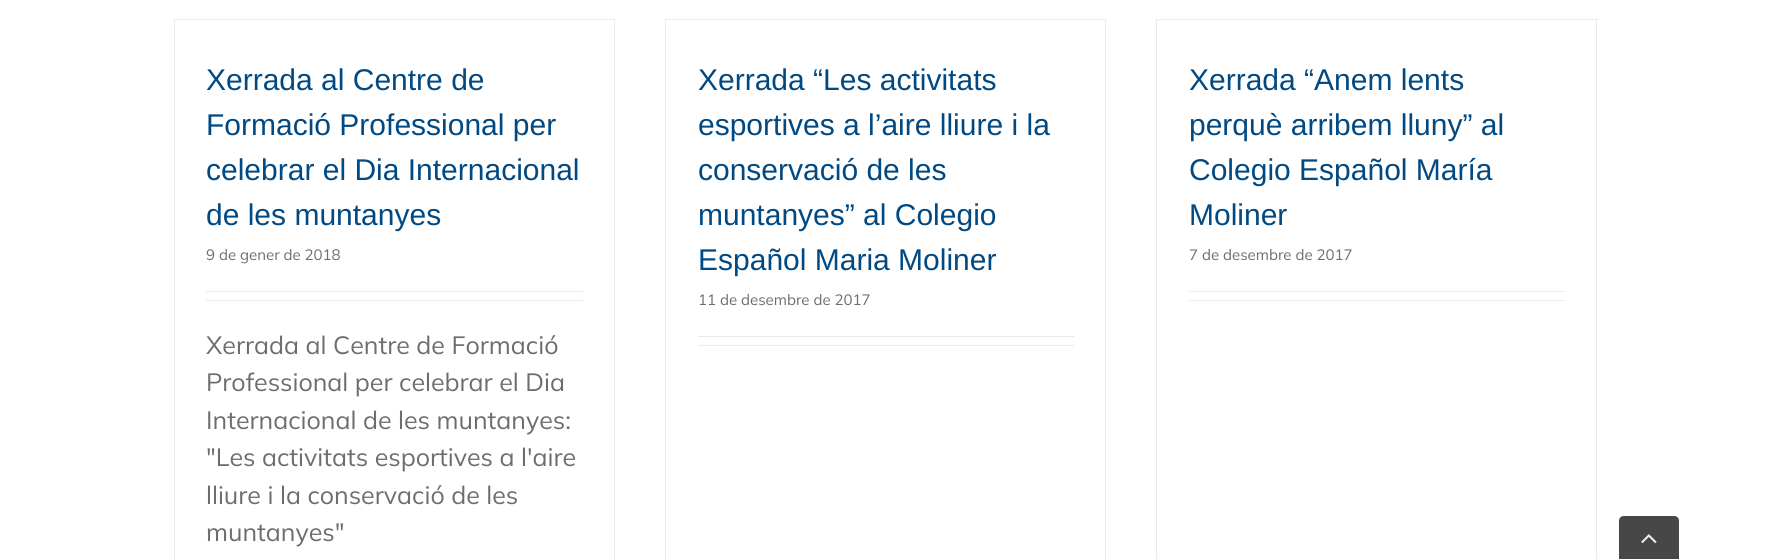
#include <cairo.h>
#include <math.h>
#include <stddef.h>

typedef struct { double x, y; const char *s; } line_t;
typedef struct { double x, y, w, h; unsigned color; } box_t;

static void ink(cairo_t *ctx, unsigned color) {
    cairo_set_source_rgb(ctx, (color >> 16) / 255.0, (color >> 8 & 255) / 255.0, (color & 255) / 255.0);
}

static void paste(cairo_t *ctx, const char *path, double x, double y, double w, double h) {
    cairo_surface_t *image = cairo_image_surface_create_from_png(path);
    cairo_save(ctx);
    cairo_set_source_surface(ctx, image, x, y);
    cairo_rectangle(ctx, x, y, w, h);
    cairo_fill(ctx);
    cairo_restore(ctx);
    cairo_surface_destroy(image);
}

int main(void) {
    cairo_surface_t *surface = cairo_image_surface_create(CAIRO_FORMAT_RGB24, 1772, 559);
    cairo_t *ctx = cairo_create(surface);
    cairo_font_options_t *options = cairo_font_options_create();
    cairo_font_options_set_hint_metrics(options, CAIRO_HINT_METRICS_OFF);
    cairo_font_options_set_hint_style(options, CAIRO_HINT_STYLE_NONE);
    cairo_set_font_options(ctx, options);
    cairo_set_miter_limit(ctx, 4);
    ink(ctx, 0xFFFFFF);
    cairo_paint(ctx);
    {
        static const box_t items[] = {
            {174, 19, 441, 1, 0xEBEAEA},
            {614, 19, 1, 540, 0xEBEAEA},
            {174, 19, 1, 540, 0xEBEAEA},
        };
        for (size_t i = 0; i < sizeof items / sizeof *items; i++) {
            ink(ctx, items[i].color);
            cairo_rectangle(ctx, items[i].x, items[i].y, items[i].w, items[i].h);
            cairo_fill(ctx);
        }
    }
    cairo_select_font_face(ctx, "Liberation Sans", CAIRO_FONT_SLANT_NORMAL, CAIRO_FONT_WEIGHT_NORMAL);
    cairo_set_font_size(ctx, 30);
    ink(ctx, 0x004983);
    {
        static const line_t items[] = {
            {206, 90, "Xerrada al Centre de"},
            {206, 135, "Formació Professional per"},
            {206, 180, "celebrar el Dia Internacional"},
            {206, 225, "de les muntanyes"},
        };
        for (size_t i = 0; i < sizeof items / sizeof *items; i++) {
            cairo_move_to(ctx, items[i].x, items[i].y);
            cairo_show_text(ctx, items[i].s);
        }
    }
    cairo_select_font_face(ctx, "Mulish", CAIRO_FONT_SLANT_NORMAL, CAIRO_FONT_WEIGHT_NORMAL);
    cairo_set_font_size(ctx, 15);
    ink(ctx, 0x6D6D6D);
    cairo_move_to(ctx, 206, 260);
    cairo_show_text(ctx, "9 de gener de 2018");
    ink(ctx, 0xEBEAEA);
    cairo_rectangle(ctx, 206, 291, 377, 1);
    cairo_fill(ctx);
    cairo_rectangle(ctx, 206, 300, 377, 1);
    cairo_fill(ctx);
    cairo_set_font_size(ctx, 25);
    ink(ctx, 0x6D6D6D);
    {
        static const line_t items[] = {
            {206, 354, "Xerrada al Centre de Formació"},
            {206, 391, "Professional per celebrar el Dia"},
            {206, 429, "Internacional de les muntanyes:"},
            {206, 466, "\"Les activitats esportives a l'aire"},
            {206, 504, "lliure i la conservació de les"},
            {206, 541, "muntanyes\""},
        };
        for (size_t i = 0; i < sizeof items / sizeof *items; i++) {
            cairo_move_to(ctx, items[i].x, items[i].y);
            cairo_show_text(ctx, items[i].s);
        }
    }
    {
        static const box_t items[] = {
            {665, 19, 441, 1, 0xEBEAEA},
            {1105, 19, 1, 540, 0xEBEAEA},
            {665, 19, 1, 540, 0xEBEAEA},
        };
        for (size_t i = 0; i < sizeof items / sizeof *items; i++) {
            ink(ctx, items[i].color);
            cairo_rectangle(ctx, items[i].x, items[i].y, items[i].w, items[i].h);
            cairo_fill(ctx);
        }
    }
    cairo_select_font_face(ctx, "Liberation Sans", CAIRO_FONT_SLANT_NORMAL, CAIRO_FONT_WEIGHT_NORMAL);
    cairo_set_font_size(ctx, 30);
    ink(ctx, 0x004983);
    {
        static const line_t items[] = {
            {698, 90, "Xerrada “Les activitats"},
            {698, 135, "esportives a l’aire lliure i la"},
            {698, 180, "conservació de les"},
            {698, 225, "muntanyes” al Colegio"},
            {698, 270, "Español Maria Moliner"},
        };
        for (size_t i = 0; i < sizeof items / sizeof *items; i++) {
            cairo_move_to(ctx, items[i].x, items[i].y);
            cairo_show_text(ctx, items[i].s);
        }
    }
    cairo_select_font_face(ctx, "Mulish", CAIRO_FONT_SLANT_NORMAL, CAIRO_FONT_WEIGHT_NORMAL);
    cairo_set_font_size(ctx, 15);
    ink(ctx, 0x6D6D6D);
    cairo_move_to(ctx, 698, 305);
    cairo_show_text(ctx, "11 de desembre de 2017");
    {
        static const box_t items[] = {
            {698, 336, 376, 1, 0xEBEAEA},
            {698, 345, 376, 1, 0xEBEAEA},
            {1156, 19, 442, 1, 0xEBEAEA},
            {1596, 19, 1, 540, 0xEBEAEA},
            {1156, 19, 1, 540, 0xEBEAEA},
        };
        for (size_t i = 0; i < sizeof items / sizeof *items; i++) {
            ink(ctx, items[i].color);
            cairo_rectangle(ctx, items[i].x, items[i].y, items[i].w, items[i].h);
            cairo_fill(ctx);
        }
    }
    cairo_select_font_face(ctx, "Liberation Sans", CAIRO_FONT_SLANT_NORMAL, CAIRO_FONT_WEIGHT_NORMAL);
    cairo_set_font_size(ctx, 30);
    ink(ctx, 0x004983);
    {
        static const line_t items[] = {
            {1189, 90, "Xerrada “Anem lents"},
            {1189, 135, "perquè arribem lluny” al"},
            {1189, 180, "Colegio Español María"},
            {1189, 225, "Moliner"},
        };
        for (size_t i = 0; i < sizeof items / sizeof *items; i++) {
            cairo_move_to(ctx, items[i].x, items[i].y);
            cairo_show_text(ctx, items[i].s);
        }
    }
    cairo_select_font_face(ctx, "Mulish", CAIRO_FONT_SLANT_NORMAL, CAIRO_FONT_WEIGHT_NORMAL);
    cairo_set_font_size(ctx, 15);
    ink(ctx, 0x6D6D6D);
    cairo_move_to(ctx, 1189, 260);
    cairo_show_text(ctx, "7 de desembre de 2017");
    ink(ctx, 0xEBEAEA);
    cairo_rectangle(ctx, 1189, 291, 376, 1);
    cairo_fill(ctx);
    cairo_rectangle(ctx, 1189, 300, 376, 1);
    cairo_fill(ctx);
    ink(ctx, 0x474747);
    cairo_new_path(ctx);
    cairo_move_to(ctx, 1624, 516);
    cairo_line_to(ctx, 1674, 516);
    cairo_curve_to(ctx, 1677, 516, 1679, 518, 1679, 521);
    cairo_line_to(ctx, 1679, 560);
    cairo_line_to(ctx, 1619, 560);
    cairo_line_to(ctx, 1619, 521);
    cairo_curve_to(ctx, 1619, 518, 1621, 516, 1624, 516);
    cairo_close_path(ctx);
    cairo_fill(ctx);
    paste(ctx, "media/1.png", 1641, 534, 16, 10);
    cairo_surface_write_to_png(surface, "image.png");
    cairo_font_options_destroy(options);
    cairo_destroy(ctx);
    cairo_surface_destroy(surface);
    return 0;
}
